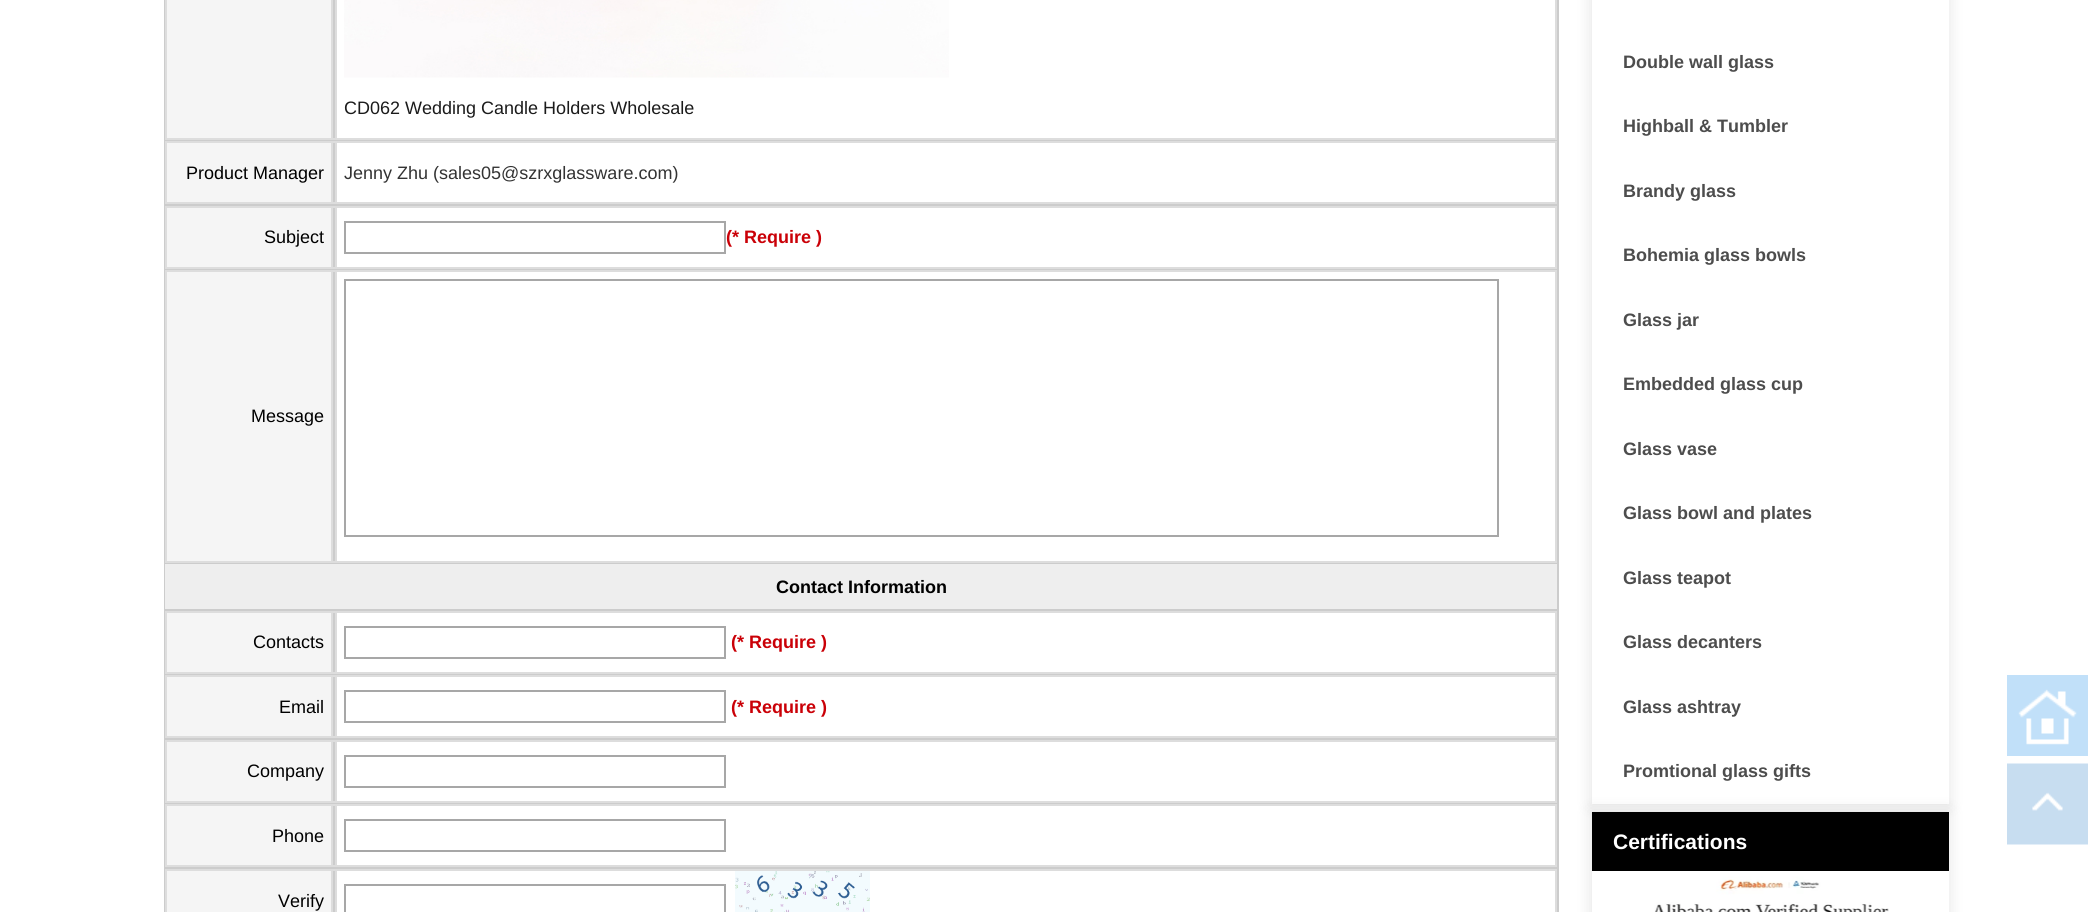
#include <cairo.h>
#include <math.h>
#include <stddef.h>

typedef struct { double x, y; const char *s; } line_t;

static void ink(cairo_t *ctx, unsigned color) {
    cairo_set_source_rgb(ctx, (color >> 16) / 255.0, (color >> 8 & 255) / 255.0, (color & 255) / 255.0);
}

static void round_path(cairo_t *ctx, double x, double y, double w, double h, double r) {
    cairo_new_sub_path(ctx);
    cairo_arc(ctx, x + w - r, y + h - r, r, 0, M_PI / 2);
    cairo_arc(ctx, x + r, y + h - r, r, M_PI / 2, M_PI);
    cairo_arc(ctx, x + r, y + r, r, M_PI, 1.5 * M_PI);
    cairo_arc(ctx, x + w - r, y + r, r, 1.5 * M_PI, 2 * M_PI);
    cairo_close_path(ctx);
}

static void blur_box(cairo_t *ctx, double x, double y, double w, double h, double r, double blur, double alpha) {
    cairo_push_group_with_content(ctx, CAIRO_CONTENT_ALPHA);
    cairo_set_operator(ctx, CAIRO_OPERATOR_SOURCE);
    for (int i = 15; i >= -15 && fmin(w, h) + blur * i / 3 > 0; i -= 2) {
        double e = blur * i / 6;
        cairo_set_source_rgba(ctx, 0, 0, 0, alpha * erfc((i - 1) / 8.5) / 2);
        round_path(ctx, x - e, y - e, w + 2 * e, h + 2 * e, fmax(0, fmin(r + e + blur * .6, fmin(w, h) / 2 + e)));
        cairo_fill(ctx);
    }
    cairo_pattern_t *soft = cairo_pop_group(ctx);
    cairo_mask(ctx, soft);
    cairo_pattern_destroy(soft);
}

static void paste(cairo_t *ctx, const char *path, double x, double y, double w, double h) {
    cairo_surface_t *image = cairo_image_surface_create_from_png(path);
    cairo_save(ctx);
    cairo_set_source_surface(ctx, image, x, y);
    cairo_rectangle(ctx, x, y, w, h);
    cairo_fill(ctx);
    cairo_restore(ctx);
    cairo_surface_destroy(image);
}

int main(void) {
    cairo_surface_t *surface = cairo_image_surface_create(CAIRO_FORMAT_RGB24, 2097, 912);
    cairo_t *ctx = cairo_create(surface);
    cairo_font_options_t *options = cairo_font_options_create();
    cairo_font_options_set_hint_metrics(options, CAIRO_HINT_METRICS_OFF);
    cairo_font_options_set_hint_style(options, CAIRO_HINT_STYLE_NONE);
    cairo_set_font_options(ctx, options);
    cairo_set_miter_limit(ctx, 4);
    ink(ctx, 0xFFFFFF);
    cairo_paint(ctx);
    ink(ctx, 0xCCCCCC);
    cairo_rectangle(ctx, 164, 0, 1395, 912);
    cairo_fill(ctx);
    cairo_rectangle(ctx, 166, -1, 1390, 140);
    ink(ctx, 0xDDDDDD);
    cairo_stroke(ctx);
    ink(ctx, 0xF5F5F5);
    cairo_rectangle(ctx, 166, -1, 166, 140);
    cairo_fill_preserve(ctx);
    ink(ctx, 0xDDDDDD);
    cairo_stroke(ctx);
    ink(ctx, 0xFFFFFF);
    cairo_rectangle(ctx, 336, -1, 1220, 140);
    cairo_fill_preserve(ctx);
    ink(ctx, 0xDDDDDD);
    cairo_stroke(ctx);
    paste(ctx, "media/1.png", 344, 0, 605, 78);
    cairo_select_font_face(ctx, "Liberation Sans", CAIRO_FONT_SLANT_NORMAL, CAIRO_FONT_WEIGHT_NORMAL);
    cairo_set_font_size(ctx, 18);
    ink(ctx, 0x1B1B1B);
    cairo_move_to(ctx, 344, 114);
    cairo_show_text(ctx, "CD062 Wedding Candle Holders Wholesale");
    cairo_rectangle(ctx, 166, 142, 1390, 61);
    ink(ctx, 0xDDDDDD);
    cairo_stroke(ctx);
    ink(ctx, 0xF5F5F5);
    cairo_rectangle(ctx, 166, 142, 166, 61);
    cairo_fill_preserve(ctx);
    ink(ctx, 0xDDDDDD);
    cairo_stroke(ctx);
    ink(ctx, 0x000000);
    cairo_move_to(ctx, 186, 179);
    cairo_show_text(ctx, "Product Manager");
    ink(ctx, 0xFFFFFF);
    cairo_rectangle(ctx, 336, 142, 1220, 61);
    cairo_fill_preserve(ctx);
    ink(ctx, 0xDDDDDD);
    cairo_stroke(ctx);
    ink(ctx, 0x333333);
    cairo_move_to(ctx, 344, 179);
    cairo_show_text(ctx, "Jenny Zhu (sales05@szrxglassware.com)");
    cairo_rectangle(ctx, 166, 207, 1390, 61);
    ink(ctx, 0xDDDDDD);
    cairo_stroke(ctx);
    ink(ctx, 0xF5F5F5);
    cairo_rectangle(ctx, 166, 207, 166, 61);
    cairo_fill_preserve(ctx);
    ink(ctx, 0xDDDDDD);
    cairo_stroke(ctx);
    ink(ctx, 0x000000);
    cairo_move_to(ctx, 264, 243);
    cairo_show_text(ctx, "Subject");
    ink(ctx, 0xFFFFFF);
    cairo_rectangle(ctx, 336, 207, 1220, 61);
    cairo_fill_preserve(ctx);
    ink(ctx, 0xDDDDDD);
    cairo_stroke(ctx);
    cairo_rectangle(ctx, 345, 222, 380, 31);
    ink(ctx, 0xA7A7A7);
    cairo_stroke(ctx);
    cairo_select_font_face(ctx, "Liberation Sans", CAIRO_FONT_SLANT_NORMAL, CAIRO_FONT_WEIGHT_BOLD);
    ink(ctx, 0xCA0007);
    cairo_move_to(ctx, 726, 243);
    cairo_show_text(ctx, "(* Require )");
    cairo_rectangle(ctx, 166, 271, 1390, 291);
    ink(ctx, 0xDDDDDD);
    cairo_stroke(ctx);
    ink(ctx, 0xF5F5F5);
    cairo_rectangle(ctx, 166, 271, 166, 291);
    cairo_fill_preserve(ctx);
    ink(ctx, 0xDDDDDD);
    cairo_stroke(ctx);
    cairo_select_font_face(ctx, "Liberation Sans", CAIRO_FONT_SLANT_NORMAL, CAIRO_FONT_WEIGHT_NORMAL);
    ink(ctx, 0x000000);
    cairo_move_to(ctx, 251, 422);
    cairo_show_text(ctx, "Message");
    ink(ctx, 0xFFFFFF);
    cairo_rectangle(ctx, 336, 271, 1220, 291);
    cairo_fill_preserve(ctx);
    ink(ctx, 0xDDDDDD);
    cairo_stroke(ctx);
    cairo_rectangle(ctx, 345, 280, 1153, 256);
    ink(ctx, 0xA7A7A7);
    cairo_stroke(ctx);
    ink(ctx, 0xEEEEEE);
    cairo_rectangle(ctx, 165, 564, 1392, 45);
    cairo_fill(ctx);
    cairo_select_font_face(ctx, "Liberation Sans", CAIRO_FONT_SLANT_NORMAL, CAIRO_FONT_WEIGHT_BOLD);
    ink(ctx, 0x000000);
    cairo_move_to(ctx, 776, 593);
    cairo_show_text(ctx, "Contact Information");
    cairo_rectangle(ctx, 166, 612, 1390, 61);
    ink(ctx, 0xDDDDDD);
    cairo_stroke(ctx);
    ink(ctx, 0xF5F5F5);
    cairo_rectangle(ctx, 166, 612, 166, 61);
    cairo_fill_preserve(ctx);
    ink(ctx, 0xDDDDDD);
    cairo_stroke(ctx);
    cairo_select_font_face(ctx, "Liberation Sans", CAIRO_FONT_SLANT_NORMAL, CAIRO_FONT_WEIGHT_NORMAL);
    ink(ctx, 0x000000);
    cairo_move_to(ctx, 253, 648);
    cairo_show_text(ctx, "Contacts");
    ink(ctx, 0xFFFFFF);
    cairo_rectangle(ctx, 336, 612, 1220, 61);
    cairo_fill_preserve(ctx);
    ink(ctx, 0xDDDDDD);
    cairo_stroke(ctx);
    cairo_rectangle(ctx, 345, 627, 380, 31);
    ink(ctx, 0xA7A7A7);
    cairo_stroke(ctx);
    cairo_select_font_face(ctx, "Liberation Sans", CAIRO_FONT_SLANT_NORMAL, CAIRO_FONT_WEIGHT_BOLD);
    ink(ctx, 0xCA0007);
    cairo_move_to(ctx, 731, 648);
    cairo_show_text(ctx, "(* Require )");
    cairo_rectangle(ctx, 166, 676, 1390, 61);
    ink(ctx, 0xDDDDDD);
    cairo_stroke(ctx);
    ink(ctx, 0xF5F5F5);
    cairo_rectangle(ctx, 166, 676, 166, 61);
    cairo_fill_preserve(ctx);
    ink(ctx, 0xDDDDDD);
    cairo_stroke(ctx);
    cairo_select_font_face(ctx, "Liberation Sans", CAIRO_FONT_SLANT_NORMAL, CAIRO_FONT_WEIGHT_NORMAL);
    ink(ctx, 0x000000);
    cairo_move_to(ctx, 279, 713);
    cairo_show_text(ctx, "Email");
    ink(ctx, 0xFFFFFF);
    cairo_rectangle(ctx, 336, 676, 1220, 61);
    cairo_fill_preserve(ctx);
    ink(ctx, 0xDDDDDD);
    cairo_stroke(ctx);
    cairo_rectangle(ctx, 345, 691, 380, 31);
    ink(ctx, 0xA7A7A7);
    cairo_stroke(ctx);
    cairo_select_font_face(ctx, "Liberation Sans", CAIRO_FONT_SLANT_NORMAL, CAIRO_FONT_WEIGHT_BOLD);
    ink(ctx, 0xCA0007);
    cairo_move_to(ctx, 731, 713);
    cairo_show_text(ctx, "(* Require )");
    cairo_rectangle(ctx, 166, 741, 1390, 61);
    ink(ctx, 0xDDDDDD);
    cairo_stroke(ctx);
    ink(ctx, 0xF5F5F5);
    cairo_rectangle(ctx, 166, 741, 166, 61);
    cairo_fill_preserve(ctx);
    ink(ctx, 0xDDDDDD);
    cairo_stroke(ctx);
    cairo_select_font_face(ctx, "Liberation Sans", CAIRO_FONT_SLANT_NORMAL, CAIRO_FONT_WEIGHT_NORMAL);
    ink(ctx, 0x000000);
    cairo_move_to(ctx, 247, 777);
    cairo_show_text(ctx, "Company");
    ink(ctx, 0xFFFFFF);
    cairo_rectangle(ctx, 336, 741, 1220, 61);
    cairo_fill_preserve(ctx);
    ink(ctx, 0xDDDDDD);
    cairo_stroke(ctx);
    cairo_rectangle(ctx, 345, 756, 380, 31);
    ink(ctx, 0xA7A7A7);
    cairo_stroke(ctx);
    cairo_rectangle(ctx, 166, 805, 1390, 61);
    ink(ctx, 0xDDDDDD);
    cairo_stroke(ctx);
    ink(ctx, 0xF5F5F5);
    cairo_rectangle(ctx, 166, 805, 166, 61);
    cairo_fill_preserve(ctx);
    ink(ctx, 0xDDDDDD);
    cairo_stroke(ctx);
    ink(ctx, 0x000000);
    cairo_move_to(ctx, 272, 842);
    cairo_show_text(ctx, "Phone");
    ink(ctx, 0xFFFFFF);
    cairo_rectangle(ctx, 336, 805, 1220, 61);
    cairo_fill_preserve(ctx);
    ink(ctx, 0xDDDDDD);
    cairo_stroke(ctx);
    cairo_rectangle(ctx, 345, 820, 380, 31);
    ink(ctx, 0xA7A7A7);
    cairo_stroke(ctx);
    cairo_rectangle(ctx, 166, 870, 1390, 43);
    ink(ctx, 0xDDDDDD);
    cairo_stroke(ctx);
    ink(ctx, 0xF5F5F5);
    cairo_rectangle(ctx, 166, 870, 166, 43);
    cairo_fill_preserve(ctx);
    ink(ctx, 0xDDDDDD);
    cairo_stroke(ctx);
    ink(ctx, 0x000000);
    cairo_move_to(ctx, 278, 907);
    cairo_show_text(ctx, "Verify");
    ink(ctx, 0xFFFFFF);
    cairo_rectangle(ctx, 336, 870, 1220, 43);
    cairo_fill_preserve(ctx);
    ink(ctx, 0xDDDDDD);
    cairo_stroke(ctx);
    cairo_rectangle(ctx, 345, 885, 380, 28);
    ink(ctx, 0xA7A7A7);
    cairo_stroke(ctx);
    paste(ctx, "media/2.png", 735, 871, 135, 41);
    cairo_save(ctx);
    cairo_set_fill_rule(ctx, CAIRO_FILL_RULE_EVEN_ODD);
    cairo_new_path(ctx);
    cairo_move_to(ctx, 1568, 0);
    cairo_line_to(ctx, 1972, 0);
    cairo_line_to(ctx, 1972, 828);
    cairo_line_to(ctx, 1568, 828);
    cairo_close_path(ctx);
    cairo_move_to(ctx, 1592, -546);
    cairo_line_to(ctx, 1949, -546);
    cairo_line_to(ctx, 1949, 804);
    cairo_line_to(ctx, 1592, 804);
    cairo_close_path(ctx);
    cairo_clip(ctx);
    ink(ctx, 0x000000);
    blur_box(ctx, 1590, -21, 360, 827, 0, 7, 0.1);
    cairo_restore(ctx);
    cairo_select_font_face(ctx, "Liberation Sans", CAIRO_FONT_SLANT_NORMAL, CAIRO_FONT_WEIGHT_BOLD);
    ink(ctx, 0x4D4D4D);
    {
        static const line_t items[] = {
            {1623, 68, "Double wall glass"},
            {1623, 132, "Highball & Tumbler"},
            {1623, 197, "Brandy glass"},
            {1623, 261, "Bohemia glass bowls"},
            {1623, 326, "Glass jar"},
            {1623, 390, "Embedded glass cup"},
            {1623, 455, "Glass vase"},
            {1623, 519, "Glass bowl and plates"},
            {1623, 584, "Glass teapot"},
            {1623, 648, "Glass decanters"},
            {1623, 713, "Glass ashtray"},
            {1623, 777, "Promtional glass gifts"},
        };
        for (size_t i = 0; i < sizeof items / sizeof *items; i++) {
            cairo_move_to(ctx, items[i].x, items[i].y);
            cairo_show_text(ctx, items[i].s);
        }
    }
    ink(ctx, 0x000000);
    blur_box(ctx, 1590, 810, 360, 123, 0, 7, 0.1);
    ink(ctx, 0x000000);
    cairo_rectangle(ctx, 1592, 812, 357, 59);
    cairo_fill(ctx);
    cairo_set_font_size(ctx, 21);
    ink(ctx, 0xFFFFFF);
    cairo_move_to(ctx, 1613, 849);
    cairo_show_text(ctx, "Certifications");
    paste(ctx, "media/3.png", 1592, 871, 357, 41);
    paste(ctx, "media/4.png", 2007, 675, 81, 81);
    paste(ctx, "media/5.png", 2007, 763, 81, 82);
    cairo_surface_write_to_png(surface, "image.png");
    cairo_font_options_destroy(options);
    cairo_destroy(ctx);
    cairo_surface_destroy(surface);
    return 0;
}
